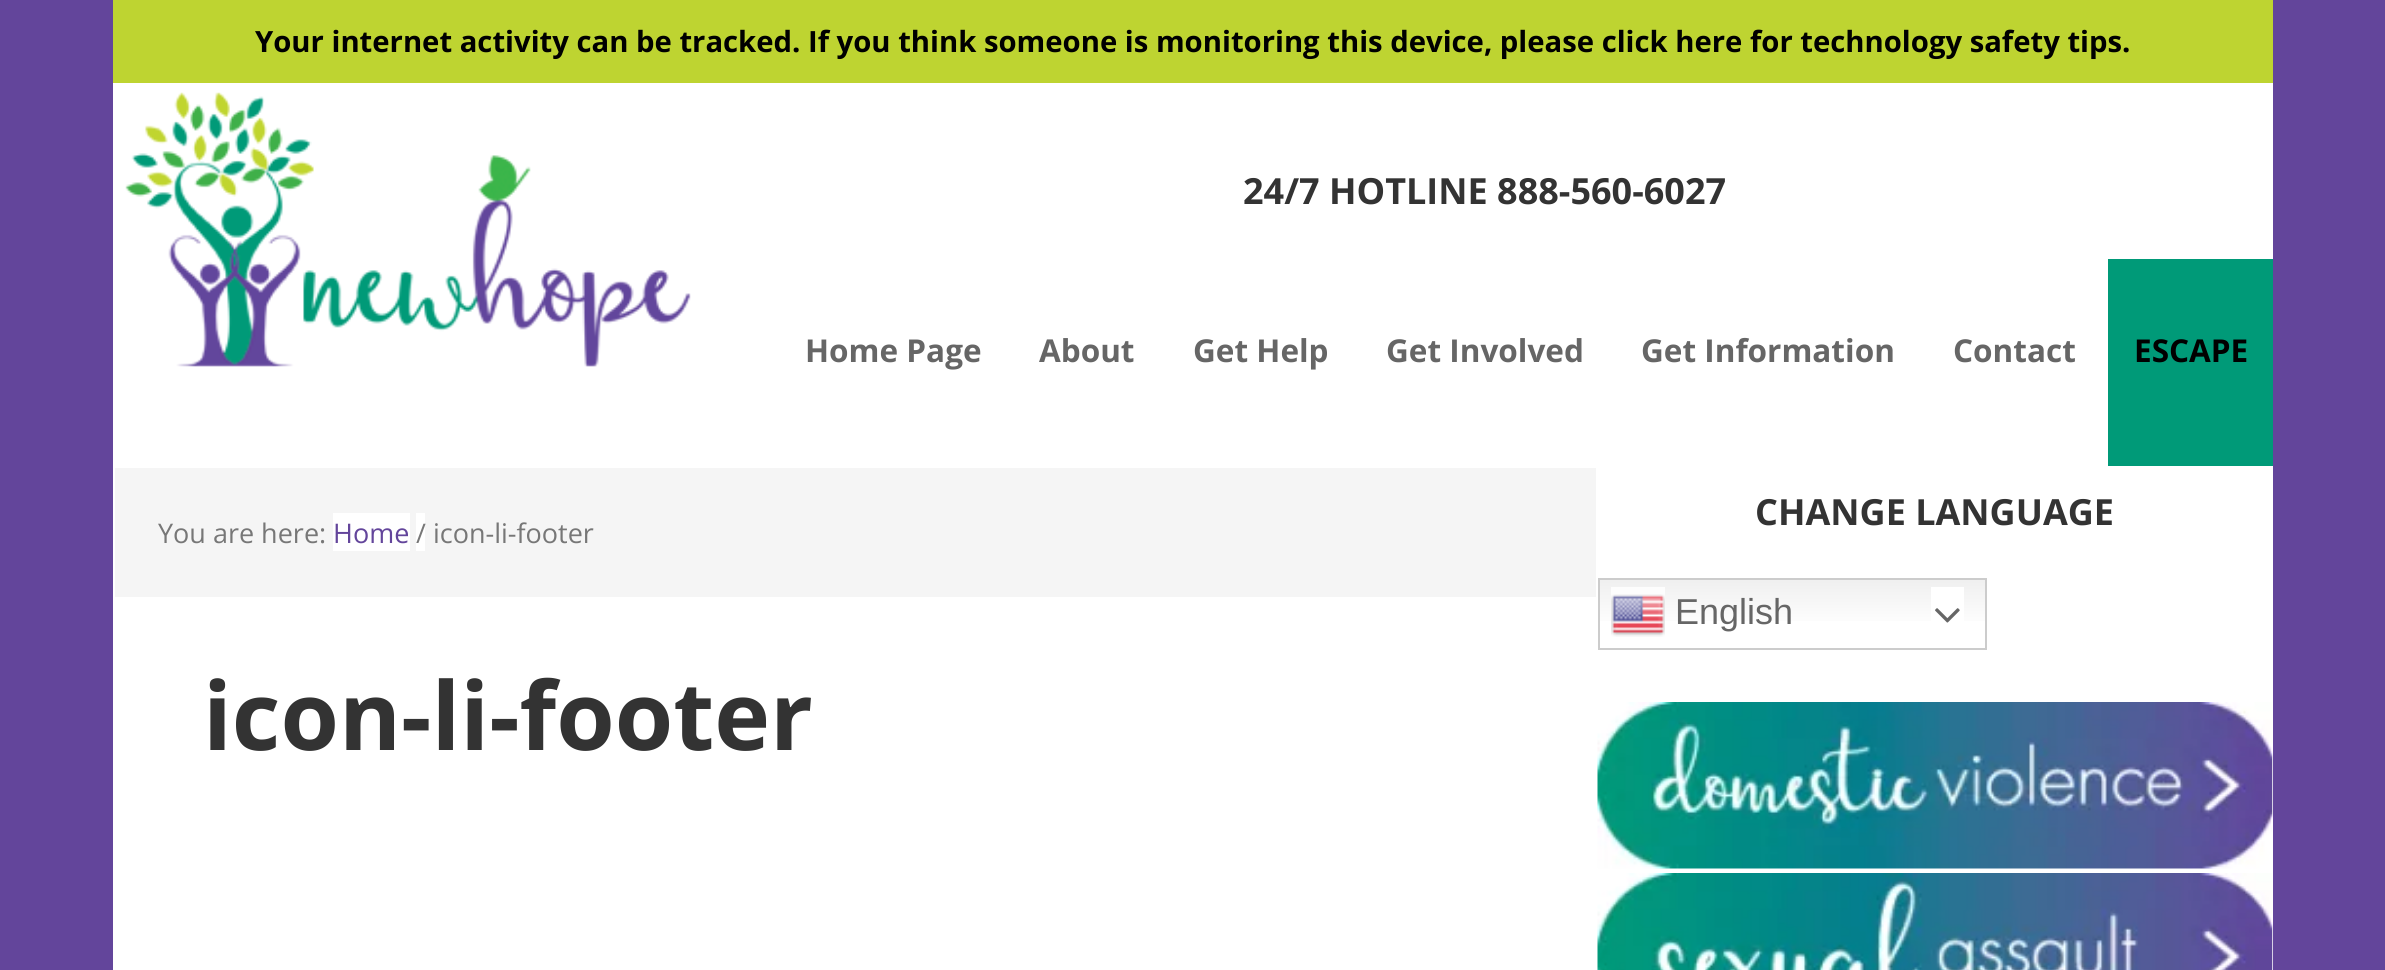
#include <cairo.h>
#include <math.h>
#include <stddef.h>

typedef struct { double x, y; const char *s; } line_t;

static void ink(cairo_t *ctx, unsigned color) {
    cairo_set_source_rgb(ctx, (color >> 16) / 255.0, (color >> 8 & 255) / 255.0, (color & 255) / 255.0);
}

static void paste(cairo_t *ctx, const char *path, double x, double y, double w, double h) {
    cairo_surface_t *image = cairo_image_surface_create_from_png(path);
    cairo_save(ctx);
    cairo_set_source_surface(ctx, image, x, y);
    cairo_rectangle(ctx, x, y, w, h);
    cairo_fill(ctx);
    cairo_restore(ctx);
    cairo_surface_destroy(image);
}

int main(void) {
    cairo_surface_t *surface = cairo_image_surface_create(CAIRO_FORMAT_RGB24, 2385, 970);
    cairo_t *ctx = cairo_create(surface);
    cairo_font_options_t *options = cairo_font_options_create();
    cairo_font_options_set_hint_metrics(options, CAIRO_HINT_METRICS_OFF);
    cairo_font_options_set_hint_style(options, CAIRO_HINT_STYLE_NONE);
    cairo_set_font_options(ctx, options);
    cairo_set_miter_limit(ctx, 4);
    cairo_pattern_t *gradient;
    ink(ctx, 0x63459B);
    cairo_paint(ctx);
    ink(ctx, 0xFFFFFF);
    cairo_rectangle(ctx, 113, 83, 2160, 887);
    cairo_fill(ctx);
    ink(ctx, 0xBED431);
    cairo_rectangle(ctx, 113, 0, 2160, 83);
    cairo_fill(ctx);
    cairo_select_font_face(ctx, "Open Sans", CAIRO_FONT_SLANT_NORMAL, CAIRO_FONT_WEIGHT_BOLD);
    cairo_set_font_size(ctx, 29.25);
    ink(ctx, 0x000000);
    cairo_move_to(ctx, 255, 52);
    cairo_show_text(ctx, "Your internet activity can be tracked. If you think someone is monitoring this device, please click here for technology safety tips.");
    paste(ctx, "media/1.png", 125, 92, 566, 275);
    cairo_set_font_size(ctx, 36);
    ink(ctx, 0x333333);
    cairo_move_to(ctx, 1243, 204);
    cairo_show_text(ctx, "24/7 HOTLINE 888-560-6027");
    cairo_set_font_size(ctx, 31.5);
    ink(ctx, 0x666666);
    {
        static const line_t items[] = {
            {805, 362, "Home Page"},
            {1039, 362, "About"},
            {1193, 362, "Get Help"},
            {1386, 362, "Get Involved"},
            {1641, 362, "Get Information"},
            {1953, 362, "Contact"},
        };
        for (size_t i = 0; i < sizeof items / sizeof *items; i++) {
            cairo_move_to(ctx, items[i].x, items[i].y);
            cairo_show_text(ctx, items[i].s);
        }
    }
    ink(ctx, 0x009A78);
    cairo_rectangle(ctx, 2108, 259, 165, 207);
    cairo_fill(ctx);
    ink(ctx, 0x000000);
    cairo_move_to(ctx, 2134, 362);
    cairo_show_text(ctx, "ESCAPE");
    ink(ctx, 0xF5F5F5);
    cairo_rectangle(ctx, 115, 468, 1481, 129);
    cairo_fill(ctx);
    cairo_select_font_face(ctx, "Open Sans", CAIRO_FONT_SLANT_NORMAL, CAIRO_FONT_WEIGHT_NORMAL);
    cairo_set_font_size(ctx, 27);
    ink(ctx, 0x777777);
    cairo_move_to(ctx, 158, 543);
    cairo_show_text(ctx, "You are here:");
    ink(ctx, 0xFFFFFF);
    cairo_rectangle(ctx, 333, 513, 77, 38);
    cairo_fill(ctx);
    ink(ctx, 0x63459B);
    cairo_move_to(ctx, 333, 543);
    cairo_show_text(ctx, "Home");
    ink(ctx, 0xFFFFFF);
    cairo_rectangle(ctx, 416, 513, 9, 38);
    cairo_fill(ctx);
    ink(ctx, 0x777777);
    cairo_move_to(ctx, 416, 543);
    cairo_show_text(ctx, "/ icon-li-footer");
    cairo_select_font_face(ctx, "Open Sans", CAIRO_FONT_SLANT_NORMAL, CAIRO_FONT_WEIGHT_BOLD);
    cairo_set_font_size(ctx, 94.5);
    ink(ctx, 0x333333);
    cairo_move_to(ctx, 203, 750);
    cairo_show_text(ctx, "icon-li-footer");
    cairo_set_font_size(ctx, 36);
    cairo_move_to(ctx, 1755, 525);
    cairo_show_text(ctx, "CHANGE LANGUAGE");
    gradient = cairo_pattern_create_linear(1792, 578, 1792, 650);
    cairo_pattern_add_color_stop_rgba(gradient, 0, 0.937, 0.937, 0.937, 1);
    cairo_pattern_add_color_stop_rgba(gradient, 0.7, 1, 1, 1, 1);
    cairo_set_source(ctx, gradient);
    cairo_pattern_destroy(gradient);
    cairo_rectangle(ctx, 1600, 580, 385, 41);
    cairo_fill(ctx);
    gradient = cairo_pattern_create_linear(1792, 578, 1792, 650);
    cairo_pattern_add_color_stop_rgba(gradient, 0, 0.988, 0.988, 0.988, 1);
    cairo_pattern_add_color_stop_rgba(gradient, 0.7, 1, 1, 1, 1);
    cairo_set_source(ctx, gradient);
    cairo_pattern_destroy(gradient);
    cairo_rectangle(ctx, 1611, 587, 54, 34);
    cairo_fill(ctx);
    cairo_rectangle(ctx, 1599, 579, 387, 70);
    ink(ctx, 0xCCCCCC);
    cairo_stroke(ctx);
    paste(ctx, "media/2.png", 1611, 594, 54, 43);
    cairo_select_font_face(ctx, "Liberation Sans", CAIRO_FONT_SLANT_NORMAL, CAIRO_FONT_WEIGHT_NORMAL);
    ink(ctx, 0x666666);
    cairo_move_to(ctx, 1675, 624);
    cairo_show_text(ctx, "English");
    ink(ctx, 0xFFFFFF);
    cairo_rectangle(ctx, 1931, 587, 33, 34);
    cairo_fill(ctx);
    paste(ctx, "media/3.png", 1935, 608, 25, 15);
    paste(ctx, "media/4.png", 1597, 702, 676, 167);
    paste(ctx, "media/5.png", 1597, 873, 676, 97);
    cairo_surface_write_to_png(surface, "image.png");
    cairo_font_options_destroy(options);
    cairo_destroy(ctx);
    cairo_surface_destroy(surface);
    return 0;
}
